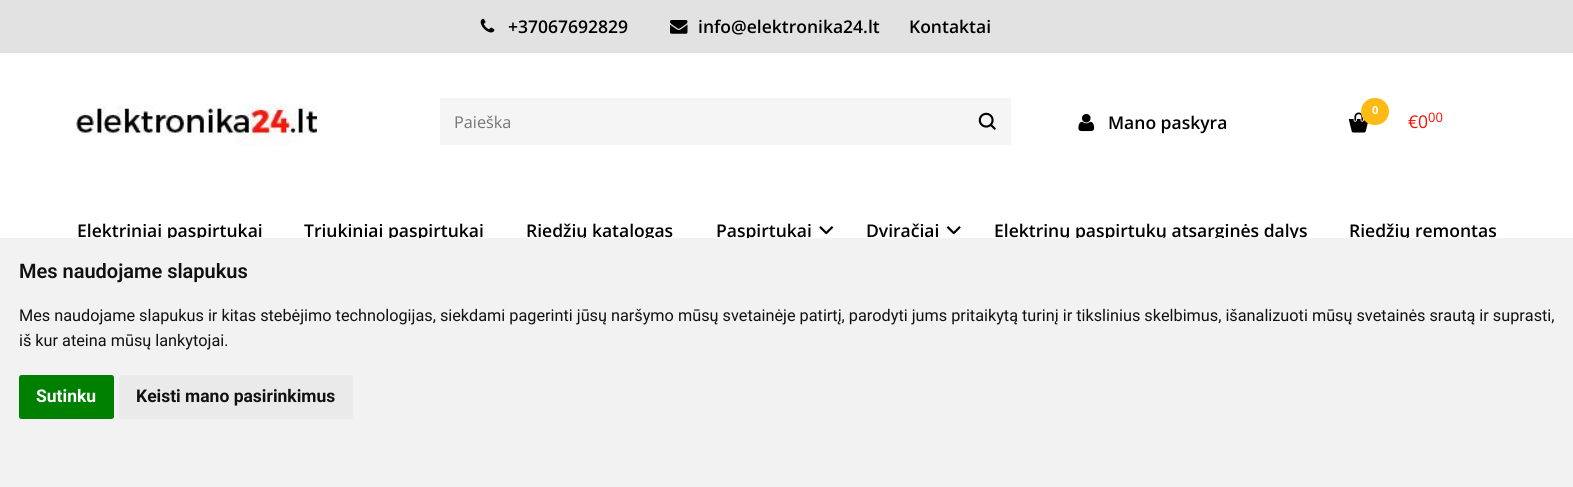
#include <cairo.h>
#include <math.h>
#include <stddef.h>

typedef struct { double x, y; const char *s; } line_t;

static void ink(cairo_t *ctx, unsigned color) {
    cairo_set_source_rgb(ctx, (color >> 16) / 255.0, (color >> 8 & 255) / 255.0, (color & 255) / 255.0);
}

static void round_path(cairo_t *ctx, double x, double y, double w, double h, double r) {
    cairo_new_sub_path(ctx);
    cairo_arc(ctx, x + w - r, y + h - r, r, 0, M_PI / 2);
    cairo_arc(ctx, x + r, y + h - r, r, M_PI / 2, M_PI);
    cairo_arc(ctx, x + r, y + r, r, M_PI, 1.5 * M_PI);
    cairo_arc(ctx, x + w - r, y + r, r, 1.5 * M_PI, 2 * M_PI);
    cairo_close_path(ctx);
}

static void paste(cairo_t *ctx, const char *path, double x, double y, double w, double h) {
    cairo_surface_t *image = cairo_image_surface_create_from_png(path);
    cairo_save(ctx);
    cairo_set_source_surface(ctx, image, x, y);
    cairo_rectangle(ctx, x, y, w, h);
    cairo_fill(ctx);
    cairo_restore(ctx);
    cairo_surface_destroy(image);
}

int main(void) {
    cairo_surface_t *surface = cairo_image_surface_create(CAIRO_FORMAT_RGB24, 1573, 487);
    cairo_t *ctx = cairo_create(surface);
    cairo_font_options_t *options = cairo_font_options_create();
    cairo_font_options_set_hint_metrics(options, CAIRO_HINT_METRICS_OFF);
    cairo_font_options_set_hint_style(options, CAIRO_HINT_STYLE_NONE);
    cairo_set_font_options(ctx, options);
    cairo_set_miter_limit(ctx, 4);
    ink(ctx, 0xFFFFFF);
    cairo_paint(ctx);
    ink(ctx, 0xE2E2E2);
    cairo_rectangle(ctx, 0, 0, 1573, 53);
    cairo_fill(ctx);
    paste(ctx, "media/1.png", 480, 18, 15, 15);
    cairo_select_font_face(ctx, "Open Sans SemiBold", CAIRO_FONT_SLANT_NORMAL, CAIRO_FONT_WEIGHT_NORMAL);
    cairo_set_font_size(ctx, 17.5);
    ink(ctx, 0x000000);
    cairo_move_to(ctx, 508, 33);
    cairo_show_text(ctx, "+37067692829");
    paste(ctx, "media/2.png", 670, 20, 18, 14);
    cairo_move_to(ctx, 698, 33);
    cairo_show_text(ctx, "info@elektronika24.lt");
    cairo_move_to(ctx, 909, 33);
    cairo_show_text(ctx, "Kontaktai");
    paste(ctx, "media/3.png", 76, 104, 241, 42);
    ink(ctx, 0xF5F5F5);
    cairo_rectangle(ctx, 440, 98, 571, 47);
    cairo_fill(ctx);
    cairo_select_font_face(ctx, "Open Sans", CAIRO_FONT_SLANT_NORMAL, CAIRO_FONT_WEIGHT_NORMAL);
    cairo_set_font_size(ctx, 16.25);
    ink(ctx, 0x757575);
    cairo_move_to(ctx, 454, 128);
    cairo_show_text(ctx, "Paieška");
    paste(ctx, "media/4.png", 978, 112, 18, 18);
    paste(ctx, "media/5.png", 1078, 113, 17, 19);
    cairo_select_font_face(ctx, "Open Sans SemiBold", CAIRO_FONT_SLANT_NORMAL, CAIRO_FONT_WEIGHT_NORMAL);
    cairo_set_font_size(ctx, 17.5);
    ink(ctx, 0x000000);
    cairo_move_to(ctx, 1108, 129);
    cairo_show_text(ctx, "Mano paskyra");
    paste(ctx, "media/6.png", 1348, 112, 20, 21);
    ink(ctx, 0xFFBA15);
    round_path(ctx, 1361, 98, 28, 27, 13.5);
    cairo_fill(ctx);
    cairo_select_font_face(ctx, "Open Sans", CAIRO_FONT_SLANT_NORMAL, CAIRO_FONT_WEIGHT_BOLD);
    cairo_set_font_size(ctx, 11);
    ink(ctx, 0xFFFFFF);
    cairo_move_to(ctx, 1372, 114);
    cairo_show_text(ctx, "0");
    cairo_select_font_face(ctx, "Open Sans", CAIRO_FONT_SLANT_NORMAL, CAIRO_FONT_WEIGHT_NORMAL);
    cairo_set_font_size(ctx, 17.5);
    ink(ctx, 0xFC0D00);
    cairo_move_to(ctx, 1408, 128);
    cairo_show_text(ctx, "€0");
    cairo_set_font_size(ctx, 13);
    cairo_move_to(ctx, 1428, 122);
    cairo_show_text(ctx, "00");
    cairo_select_font_face(ctx, "Open Sans SemiBold", CAIRO_FONT_SLANT_NORMAL, CAIRO_FONT_WEIGHT_NORMAL);
    cairo_set_font_size(ctx, 17.5);
    ink(ctx, 0x000000);
    {
        static const line_t items[] = {
            {77, 237, "Elektriniai paspirtukai"},
            {304, 237, "Triukiniai paspirtukai"},
            {526, 237, "Riedžių katalogas"},
            {716, 237, "Paspirtukai"},
        };
        for (size_t i = 0; i < sizeof items / sizeof *items; i++) {
            cairo_move_to(ctx, items[i].x, items[i].y);
            cairo_show_text(ctx, items[i].s);
        }
    }
    paste(ctx, "media/7.png", 819, 226, 15, 9);
    cairo_move_to(ctx, 866, 237);
    cairo_show_text(ctx, "Dviračiai");
    paste(ctx, "media/8.png", 946, 226, 15, 9);
    cairo_move_to(ctx, 994, 237);
    cairo_show_text(ctx, "Elektrinų paspirtukų atsarginės dalys");
    cairo_move_to(ctx, 1349, 237);
    cairo_show_text(ctx, "Riedžių remontas");
    ink(ctx, 0xF2F2F2);
    cairo_rectangle(ctx, 0, 238, 1573, 249);
    cairo_fill(ctx);
    cairo_select_font_face(ctx, "Roboto SemiBold", CAIRO_FONT_SLANT_NORMAL, CAIRO_FONT_WEIGHT_NORMAL);
    cairo_set_font_size(ctx, 20);
    ink(ctx, 0x111111);
    cairo_move_to(ctx, 19, 278);
    cairo_show_text(ctx, "Mes naudojame slapukus");
    cairo_select_font_face(ctx, "Roboto", CAIRO_FONT_SLANT_NORMAL, CAIRO_FONT_WEIGHT_NORMAL);
    cairo_set_font_size(ctx, 16.25);
    cairo_move_to(ctx, 19, 321);
    cairo_show_text(ctx, "Mes naudojame slapukus ir kitas stebėjimo technologijas, siekdami pagerinti jūsų naršymo mūsų svetainėje patirtį, parodyti jums pritaikytą turinį ir tikslinius skelbimus, išanalizuoti mūsų svetainės srautą ir suprasti,");
    cairo_move_to(ctx, 19, 346);
    cairo_show_text(ctx, "iš kur ateina mūsų lankytojai.");
    ink(ctx, 0x008000);
    round_path(ctx, 19, 375, 95, 44, 2.5);
    cairo_fill(ctx);
    cairo_select_font_face(ctx, "Roboto", CAIRO_FONT_SLANT_NORMAL, CAIRO_FONT_WEIGHT_BOLD);
    cairo_set_font_size(ctx, 17.5);
    ink(ctx, 0xFFFFFF);
    cairo_move_to(ctx, 36, 402);
    cairo_show_text(ctx, "Sutinku");
    ink(ctx, 0xEAEAEA);
    round_path(ctx, 119, 375, 234, 44, 2.5);
    cairo_fill(ctx);
    ink(ctx, 0x111111);
    cairo_move_to(ctx, 136, 402);
    cairo_show_text(ctx, "Keisti mano pasirinkimus");
    cairo_surface_write_to_png(surface, "image.png");
    cairo_font_options_destroy(options);
    cairo_destroy(ctx);
    cairo_surface_destroy(surface);
    return 0;
}
